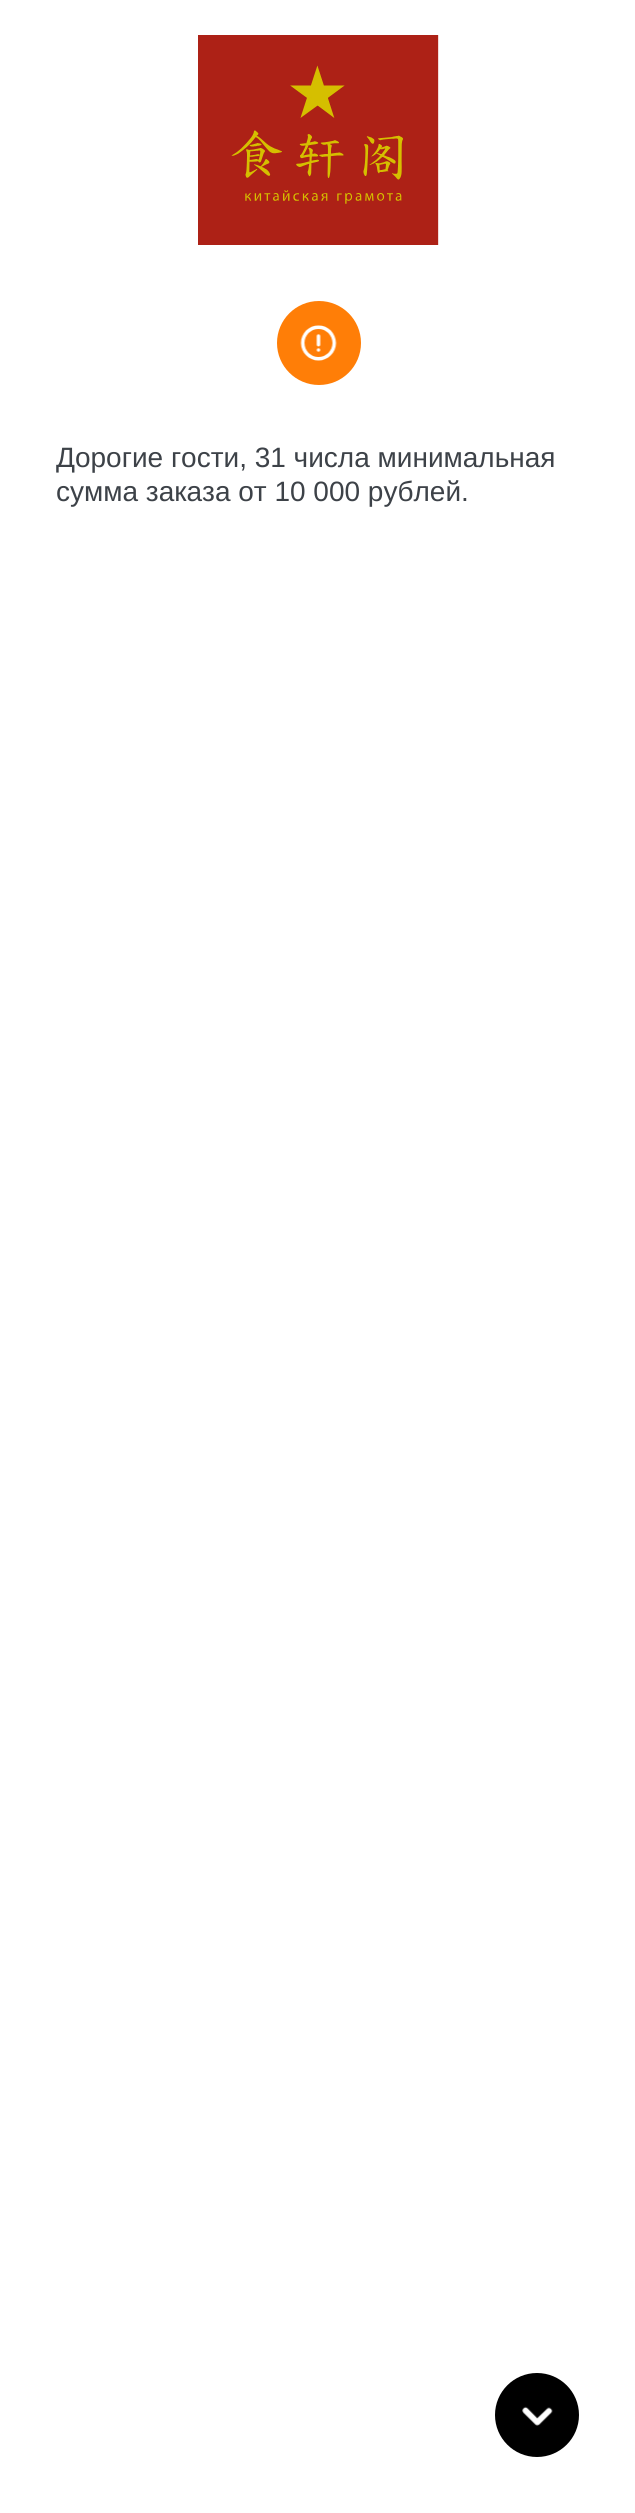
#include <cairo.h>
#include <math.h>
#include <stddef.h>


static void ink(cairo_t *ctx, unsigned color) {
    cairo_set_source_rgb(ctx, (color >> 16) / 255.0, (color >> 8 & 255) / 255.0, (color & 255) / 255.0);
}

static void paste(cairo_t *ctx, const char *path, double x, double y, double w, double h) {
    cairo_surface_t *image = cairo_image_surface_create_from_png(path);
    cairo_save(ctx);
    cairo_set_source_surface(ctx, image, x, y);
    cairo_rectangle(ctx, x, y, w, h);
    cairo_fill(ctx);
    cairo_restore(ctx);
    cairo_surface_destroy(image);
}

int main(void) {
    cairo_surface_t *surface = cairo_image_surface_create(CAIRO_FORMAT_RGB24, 635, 2513);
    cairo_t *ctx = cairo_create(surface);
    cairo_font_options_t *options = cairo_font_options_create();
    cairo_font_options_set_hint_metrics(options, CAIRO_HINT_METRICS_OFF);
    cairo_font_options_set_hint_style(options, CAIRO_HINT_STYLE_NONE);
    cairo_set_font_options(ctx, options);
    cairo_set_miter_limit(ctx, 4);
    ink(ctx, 0xFFFFFF);
    cairo_paint(ctx);
    paste(ctx, "media/1.png", 198, 35, 241, 210);
    ink(ctx, 0xFF7E07);
    cairo_arc(ctx, 319, 343, 42, 0, 2 * M_PI);
    cairo_fill(ctx);
    paste(ctx, "media/2.png", 300, 325, 37, 36);
    cairo_select_font_face(ctx, "Liberation Sans", CAIRO_FONT_SLANT_NORMAL, CAIRO_FONT_WEIGHT_NORMAL);
    cairo_set_font_size(ctx, 28);
    ink(ctx, 0x3D4248);
    cairo_move_to(ctx, 56, 467);
    cairo_show_text(ctx, "Дорогие гости, 31 числа минимальная");
    cairo_move_to(ctx, 56, 501);
    cairo_show_text(ctx, "сумма заказа от 10 000 рублей.");
    ink(ctx, 0x000000);
    cairo_new_path(ctx);
    cairo_arc(ctx, 537, 2415, 42, 0, 2 * M_PI);
    cairo_fill(ctx);
    paste(ctx, "media/3.png", 522, 2406, 31, 20);
    cairo_surface_write_to_png(surface, "image.png");
    cairo_font_options_destroy(options);
    cairo_destroy(ctx);
    cairo_surface_destroy(surface);
    return 0;
}
